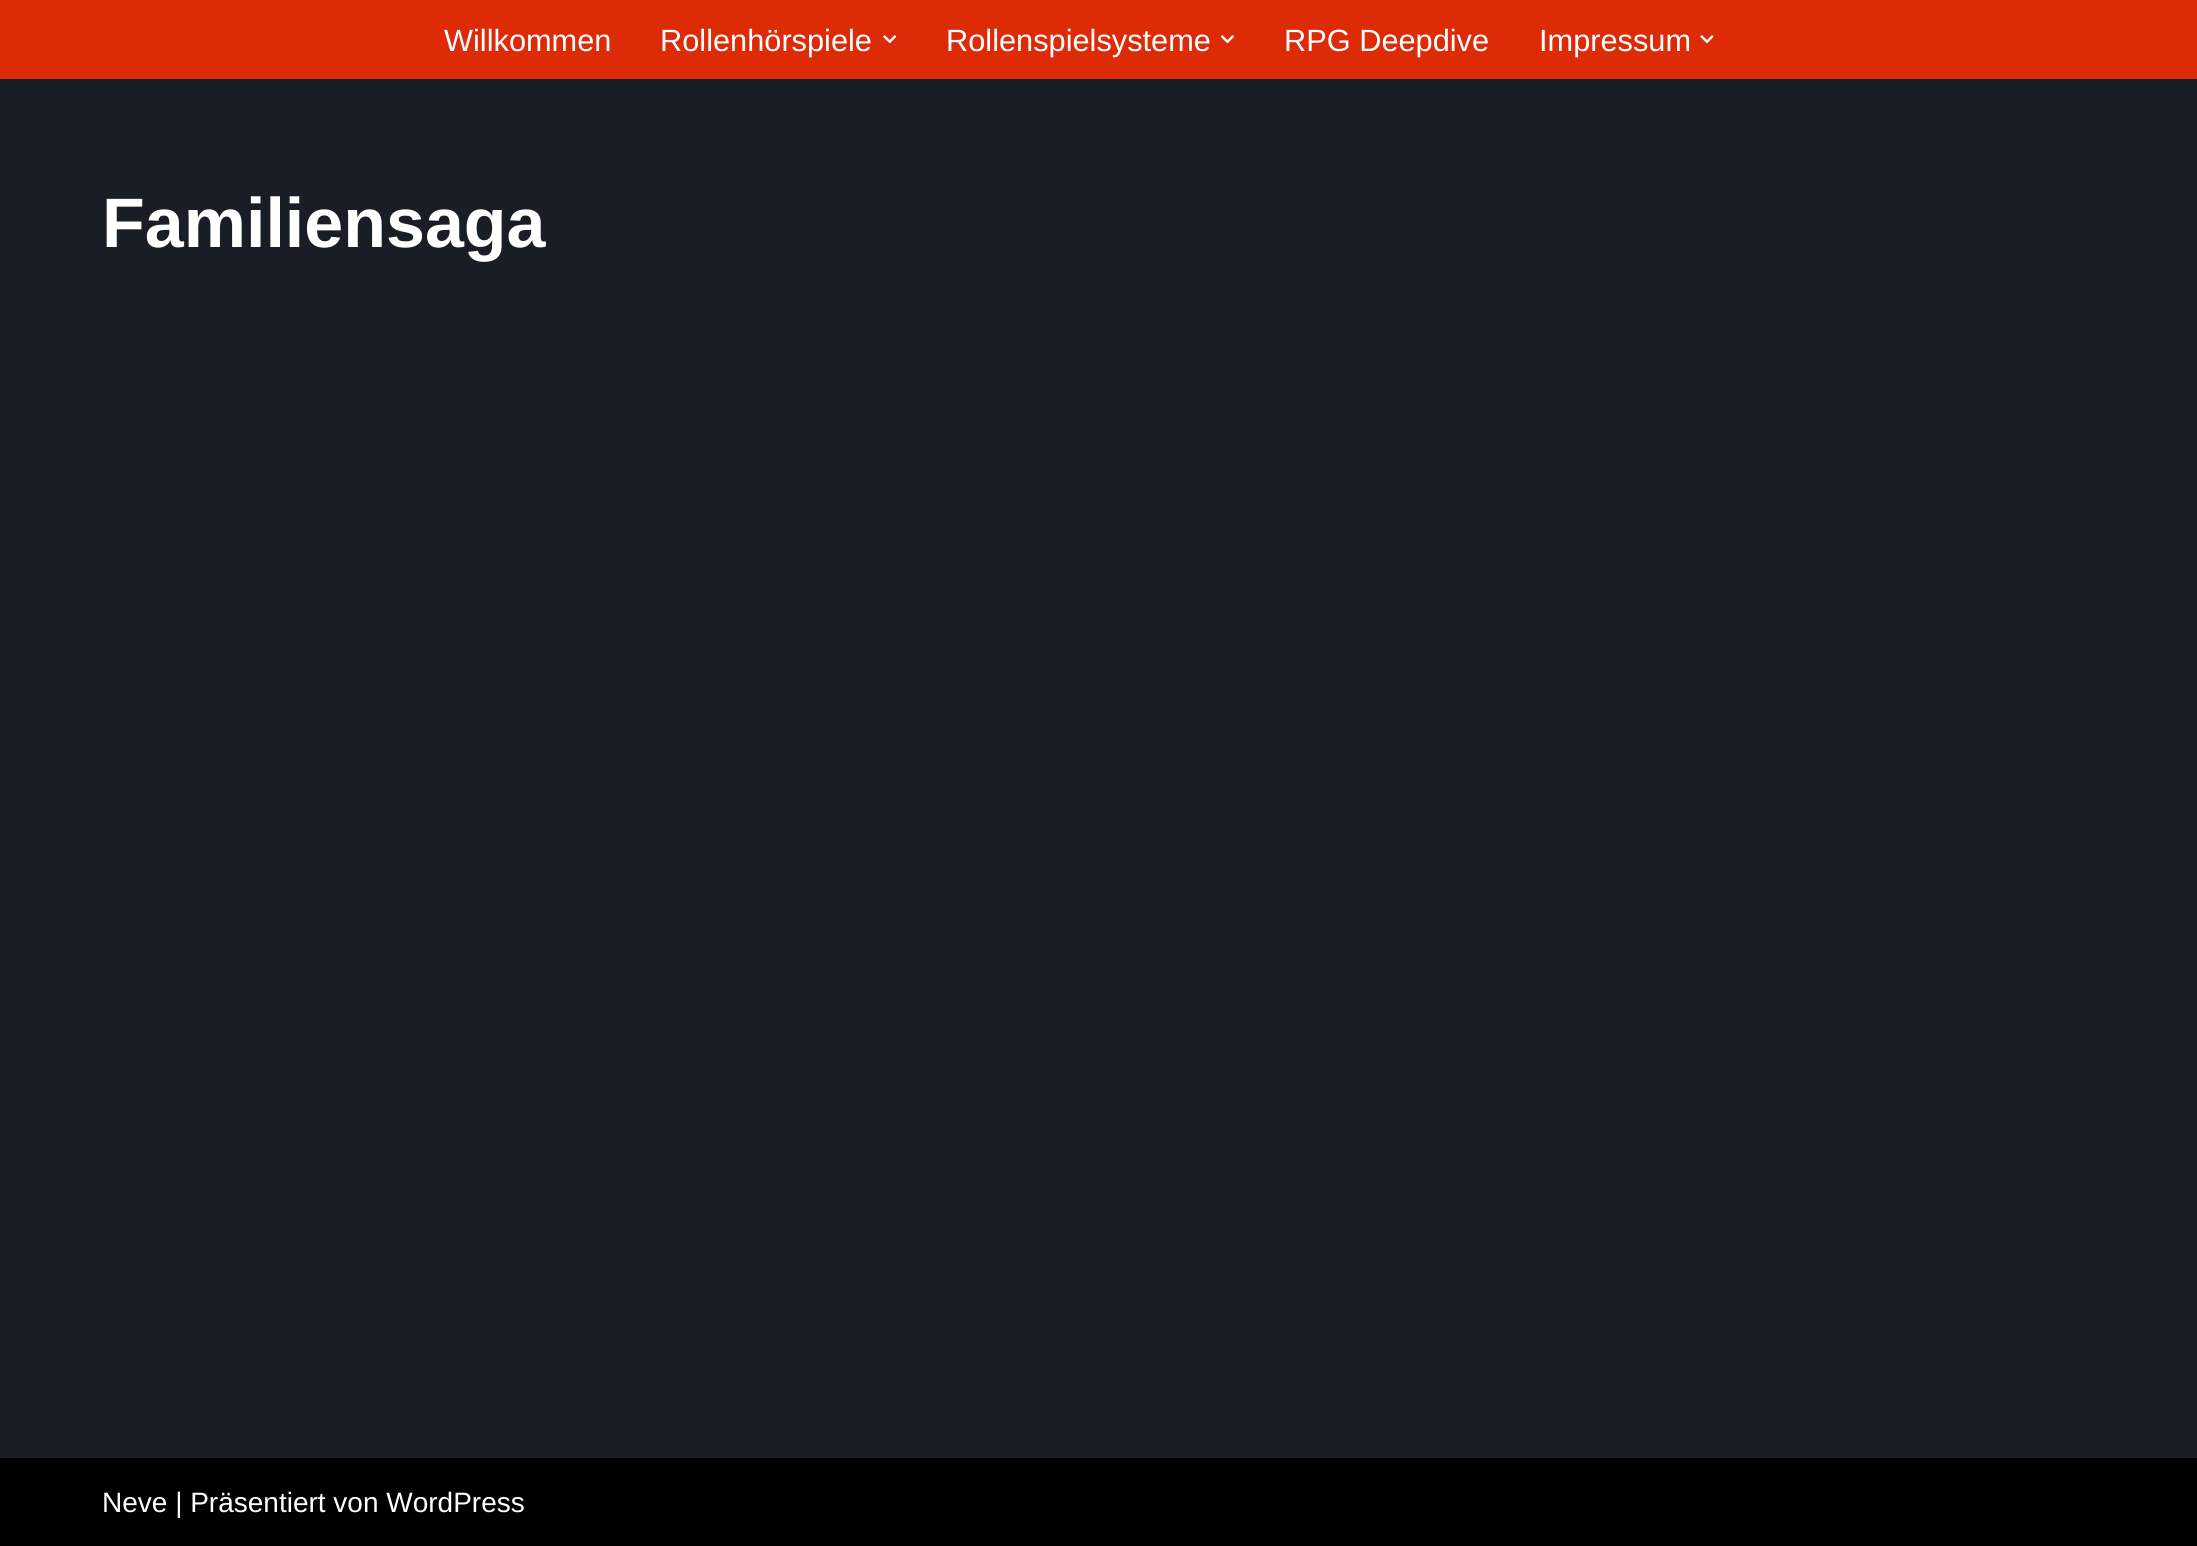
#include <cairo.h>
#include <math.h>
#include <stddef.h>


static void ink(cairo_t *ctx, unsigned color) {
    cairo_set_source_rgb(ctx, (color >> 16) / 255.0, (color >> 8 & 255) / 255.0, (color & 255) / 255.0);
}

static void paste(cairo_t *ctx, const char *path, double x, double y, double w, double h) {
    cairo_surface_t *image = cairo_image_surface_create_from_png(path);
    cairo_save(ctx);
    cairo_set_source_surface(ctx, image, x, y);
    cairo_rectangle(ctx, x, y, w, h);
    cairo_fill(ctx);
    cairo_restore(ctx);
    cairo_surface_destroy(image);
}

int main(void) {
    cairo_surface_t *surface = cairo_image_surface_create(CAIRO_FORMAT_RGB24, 2197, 1546);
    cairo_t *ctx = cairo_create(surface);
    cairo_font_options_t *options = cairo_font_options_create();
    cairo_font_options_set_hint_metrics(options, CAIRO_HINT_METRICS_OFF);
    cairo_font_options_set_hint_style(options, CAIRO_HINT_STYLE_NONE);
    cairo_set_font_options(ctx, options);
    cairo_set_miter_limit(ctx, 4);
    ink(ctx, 0x191E26);
    cairo_paint(ctx);
    ink(ctx, 0xDD2A07);
    cairo_rectangle(ctx, 0, 0, 2197, 79);
    cairo_fill(ctx);
    cairo_select_font_face(ctx, "Liberation Sans", CAIRO_FONT_SLANT_NORMAL, CAIRO_FONT_WEIGHT_NORMAL);
    cairo_set_font_size(ctx, 30.75);
    ink(ctx, 0xFFFFFF);
    cairo_move_to(ctx, 444, 51);
    cairo_show_text(ctx, "Willkommen");
    cairo_move_to(ctx, 660, 51);
    cairo_show_text(ctx, "Rollenhörspiele");
    paste(ctx, "media/1.png", 883, 35, 13, 9);
    cairo_move_to(ctx, 946, 51);
    cairo_show_text(ctx, "Rollenspielsysteme");
    paste(ctx, "media/2.png", 1220, 35, 14, 9);
    cairo_move_to(ctx, 1284, 51);
    cairo_show_text(ctx, "RPG Deepdive");
    cairo_move_to(ctx, 1539, 51);
    cairo_show_text(ctx, "Impressum");
    paste(ctx, "media/3.png", 1700, 35, 14, 9);
    cairo_select_font_face(ctx, "Liberation Sans", CAIRO_FONT_SLANT_NORMAL, CAIRO_FONT_WEIGHT_BOLD);
    cairo_set_font_size(ctx, 70);
    cairo_move_to(ctx, 102, 247);
    cairo_show_text(ctx, "Familiensaga");
    ink(ctx, 0x000000);
    cairo_rectangle(ctx, 0, 1458, 2197, 88);
    cairo_fill(ctx);
    cairo_select_font_face(ctx, "Liberation Sans", CAIRO_FONT_SLANT_NORMAL, CAIRO_FONT_WEIGHT_NORMAL);
    cairo_set_font_size(ctx, 28);
    ink(ctx, 0xFFFFFF);
    cairo_move_to(ctx, 102, 1512);
    cairo_show_text(ctx, "Neve | Präsentiert von WordPress");
    cairo_surface_write_to_png(surface, "image.png");
    cairo_font_options_destroy(options);
    cairo_destroy(ctx);
    cairo_surface_destroy(surface);
    return 0;
}
